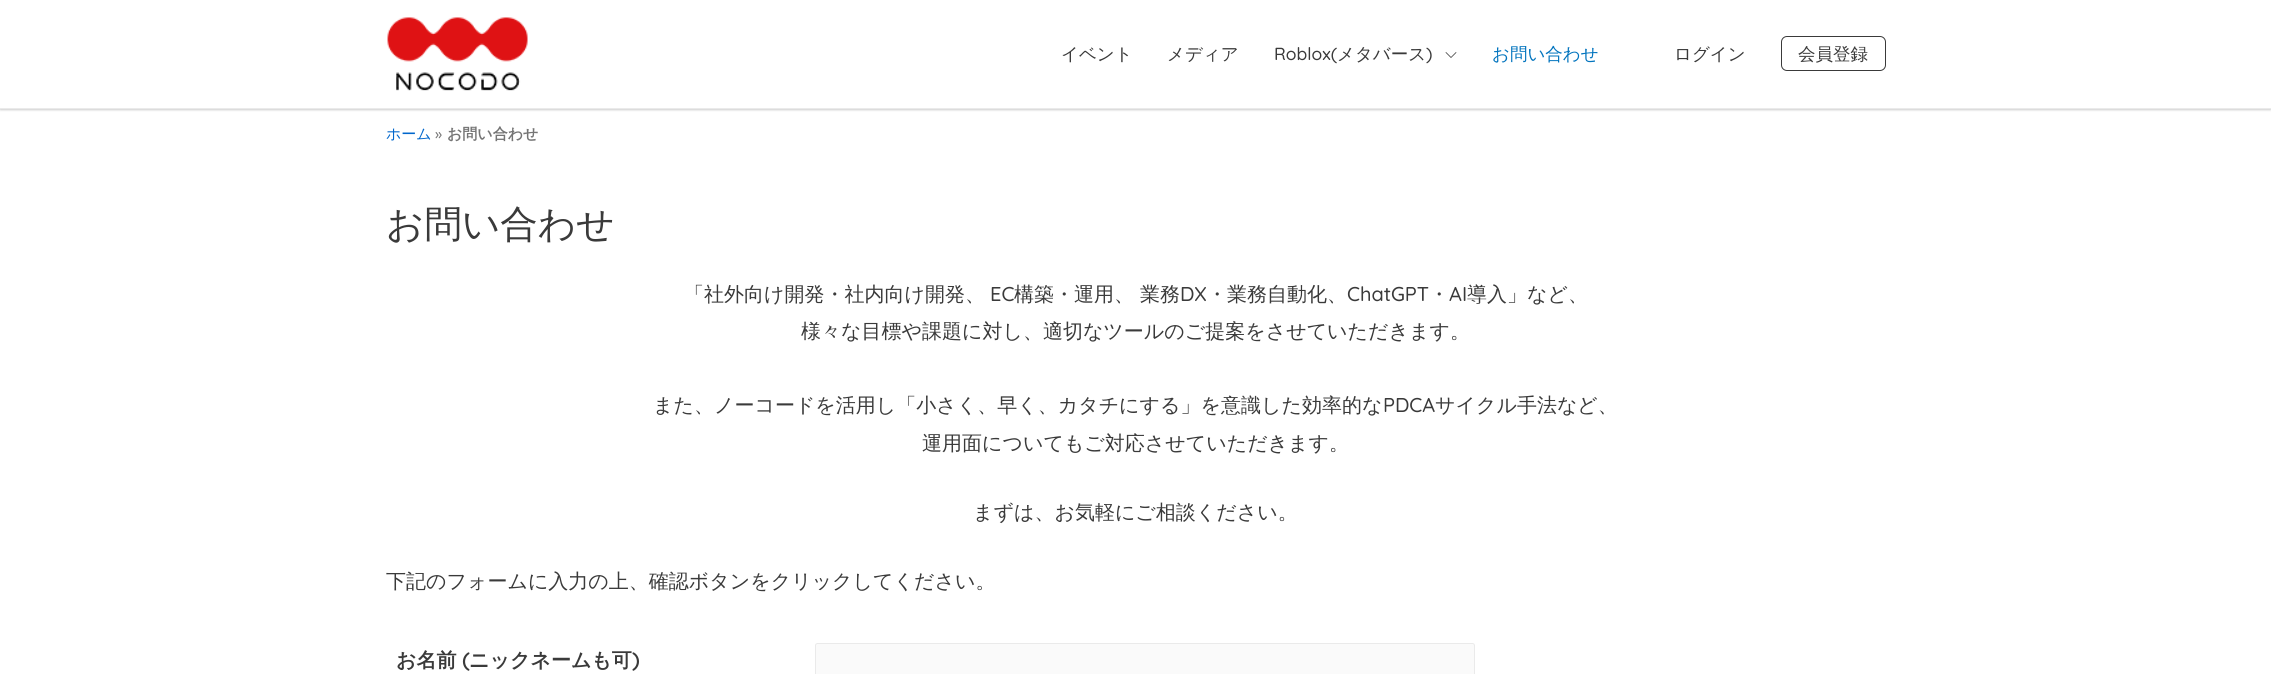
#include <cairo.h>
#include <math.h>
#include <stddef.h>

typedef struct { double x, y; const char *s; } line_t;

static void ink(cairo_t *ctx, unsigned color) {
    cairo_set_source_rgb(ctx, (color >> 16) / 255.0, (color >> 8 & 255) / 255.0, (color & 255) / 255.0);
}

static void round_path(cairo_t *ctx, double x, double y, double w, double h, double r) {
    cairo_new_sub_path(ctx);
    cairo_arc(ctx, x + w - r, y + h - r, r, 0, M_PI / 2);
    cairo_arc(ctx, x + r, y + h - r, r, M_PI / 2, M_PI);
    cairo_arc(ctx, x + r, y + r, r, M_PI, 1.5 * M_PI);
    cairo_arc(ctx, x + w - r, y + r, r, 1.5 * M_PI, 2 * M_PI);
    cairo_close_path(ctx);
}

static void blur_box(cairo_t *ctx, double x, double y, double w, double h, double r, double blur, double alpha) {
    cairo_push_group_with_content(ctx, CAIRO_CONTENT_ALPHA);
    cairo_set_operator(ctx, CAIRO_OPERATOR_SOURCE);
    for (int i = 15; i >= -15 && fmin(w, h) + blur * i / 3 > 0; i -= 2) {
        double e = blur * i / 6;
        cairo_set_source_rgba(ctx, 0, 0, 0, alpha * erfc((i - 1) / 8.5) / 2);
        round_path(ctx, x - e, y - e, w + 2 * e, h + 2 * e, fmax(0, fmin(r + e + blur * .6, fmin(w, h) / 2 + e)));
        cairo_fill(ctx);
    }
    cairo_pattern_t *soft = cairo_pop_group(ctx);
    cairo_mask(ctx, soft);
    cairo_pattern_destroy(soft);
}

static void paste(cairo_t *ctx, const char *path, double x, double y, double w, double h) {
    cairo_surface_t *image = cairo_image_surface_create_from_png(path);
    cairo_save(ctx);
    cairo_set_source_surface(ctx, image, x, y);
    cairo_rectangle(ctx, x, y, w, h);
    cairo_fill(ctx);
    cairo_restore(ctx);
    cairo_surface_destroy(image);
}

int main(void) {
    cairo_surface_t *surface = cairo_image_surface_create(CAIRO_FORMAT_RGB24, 2271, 674);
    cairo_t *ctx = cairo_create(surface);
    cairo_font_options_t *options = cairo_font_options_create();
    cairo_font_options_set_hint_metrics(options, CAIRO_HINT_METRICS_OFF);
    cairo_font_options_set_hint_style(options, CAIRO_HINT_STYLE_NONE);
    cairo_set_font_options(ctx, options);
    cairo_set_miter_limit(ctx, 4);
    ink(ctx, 0xFFFFFF);
    cairo_paint(ctx);
    ink(ctx, 0x000000);
    blur_box(ctx, 0, 1, 2271, 109, 0, 1, 0.2);
    ink(ctx, 0xFFFFFF);
    cairo_rectangle(ctx, 0, 0, 2271, 108);
    cairo_fill(ctx);
    ink(ctx, 0xEAEAEA);
    cairo_rectangle(ctx, 0, 108, 2271, 1);
    cairo_fill(ctx);
    paste(ctx, "media/1.png", 387, 17, 141, 74);
    cairo_select_font_face(ctx, "WenQuanYi Zen Hei Medium", CAIRO_FONT_SLANT_NORMAL, CAIRO_FONT_WEIGHT_NORMAL);
    cairo_set_font_size(ctx, 17.5);
    ink(ctx, 0x3A3A3A);
    cairo_move_to(ctx, 1061, 60);
    cairo_show_text(ctx, "イベント");
    cairo_move_to(ctx, 1167, 60);
    cairo_show_text(ctx, "メディア");
    cairo_select_font_face(ctx, "Quicksand Light", CAIRO_FONT_SLANT_NORMAL, CAIRO_FONT_WEIGHT_NORMAL);
    cairo_move_to(ctx, 1274, 60);
    cairo_show_text(ctx, "Roblox(");
    cairo_select_font_face(ctx, "WenQuanYi Zen Hei Medium", CAIRO_FONT_SLANT_NORMAL, CAIRO_FONT_WEIGHT_NORMAL);
    cairo_move_to(ctx, 1337, 60);
    cairo_show_text(ctx, "メタバース");
    cairo_select_font_face(ctx, "Quicksand Light", CAIRO_FONT_SLANT_NORMAL, CAIRO_FONT_WEIGHT_NORMAL);
    cairo_move_to(ctx, 1426, 60);
    cairo_show_text(ctx, ")");
    paste(ctx, "media/2.png", 1445, 52, 12, 6);
    cairo_select_font_face(ctx, "WenQuanYi Zen Hei Medium", CAIRO_FONT_SLANT_NORMAL, CAIRO_FONT_WEIGHT_NORMAL);
    ink(ctx, 0x0274BE);
    cairo_move_to(ctx, 1492, 60);
    cairo_show_text(ctx, "お問い合わせ");
    ink(ctx, 0x3A3A3A);
    cairo_move_to(ctx, 1674, 60);
    cairo_show_text(ctx, "ログイン");
    round_path(ctx, 1781.5, 36.5, 104, 34, 5.5);
    cairo_set_line_width(ctx, 1);
    cairo_stroke(ctx);
    cairo_move_to(ctx, 1798, 60);
    cairo_show_text(ctx, "会員登録");
    cairo_set_font_size(ctx, 15);
    ink(ctx, 0x0066CC);
    cairo_move_to(ctx, 386, 139);
    cairo_show_text(ctx, "ホーム");
    cairo_select_font_face(ctx, "Quicksand Light", CAIRO_FONT_SLANT_NORMAL, CAIRO_FONT_WEIGHT_NORMAL);
    ink(ctx, 0x757575);
    cairo_move_to(ctx, 435, 139);
    cairo_show_text(ctx, "»");
    cairo_select_font_face(ctx, "WenQuanYi Zen Hei", CAIRO_FONT_SLANT_NORMAL, CAIRO_FONT_WEIGHT_BOLD);
    cairo_move_to(ctx, 447, 139);
    cairo_show_text(ctx, "お問い合わせ");
    cairo_select_font_face(ctx, "WenQuanYi Zen Hei Medium", CAIRO_FONT_SLANT_NORMAL, CAIRO_FONT_WEIGHT_NORMAL);
    cairo_set_font_size(ctx, 37.5);
    ink(ctx, 0x3A3A3A);
    cairo_move_to(ctx, 386, 237);
    cairo_show_text(ctx, "お問い合わせ");
    cairo_set_font_size(ctx, 20);
    cairo_move_to(ctx, 684, 301);
    cairo_show_text(ctx, "「社外向け開発・社内向け開発、");
    cairo_select_font_face(ctx, "Quicksand Light", CAIRO_FONT_SLANT_NORMAL, CAIRO_FONT_WEIGHT_NORMAL);
    cairo_move_to(ctx, 990, 301);
    cairo_show_text(ctx, "EC");
    cairo_select_font_face(ctx, "WenQuanYi Zen Hei Medium", CAIRO_FONT_SLANT_NORMAL, CAIRO_FONT_WEIGHT_NORMAL);
    cairo_move_to(ctx, 1014, 301);
    cairo_show_text(ctx, "構築・運用、 業務");
    cairo_select_font_face(ctx, "Quicksand Light", CAIRO_FONT_SLANT_NORMAL, CAIRO_FONT_WEIGHT_NORMAL);
    cairo_move_to(ctx, 1180, 301);
    cairo_show_text(ctx, "DX");
    cairo_select_font_face(ctx, "WenQuanYi Zen Hei Medium", CAIRO_FONT_SLANT_NORMAL, CAIRO_FONT_WEIGHT_NORMAL);
    cairo_move_to(ctx, 1207, 301);
    cairo_show_text(ctx, "・業務自動化、");
    cairo_select_font_face(ctx, "Quicksand Light", CAIRO_FONT_SLANT_NORMAL, CAIRO_FONT_WEIGHT_NORMAL);
    cairo_move_to(ctx, 1347, 301);
    cairo_show_text(ctx, "ChatGPT");
    cairo_select_font_face(ctx, "WenQuanYi Zen Hei Medium", CAIRO_FONT_SLANT_NORMAL, CAIRO_FONT_WEIGHT_NORMAL);
    cairo_move_to(ctx, 1429, 301);
    cairo_show_text(ctx, "・");
    cairo_select_font_face(ctx, "Quicksand Light", CAIRO_FONT_SLANT_NORMAL, CAIRO_FONT_WEIGHT_NORMAL);
    cairo_move_to(ctx, 1449, 301);
    cairo_show_text(ctx, "AI");
    cairo_select_font_face(ctx, "WenQuanYi Zen Hei Medium", CAIRO_FONT_SLANT_NORMAL, CAIRO_FONT_WEIGHT_NORMAL);
    {
        static const line_t items[] = {
            {1467, 301, "導入」など、"},
            {801, 338, "様々な目標や課題に対し、適切なツールのご提案をさせていただきます。"},
            {653, 412, "また、ノーコードを活用し「小さく、早く、カタチにする」を意識した効率的な"},
        };
        for (size_t i = 0; i < sizeof items / sizeof *items; i++) {
            cairo_move_to(ctx, items[i].x, items[i].y);
            cairo_show_text(ctx, items[i].s);
        }
    }
    cairo_select_font_face(ctx, "Quicksand Light", CAIRO_FONT_SLANT_NORMAL, CAIRO_FONT_WEIGHT_NORMAL);
    cairo_move_to(ctx, 1383, 412);
    cairo_show_text(ctx, "PDCA");
    cairo_select_font_face(ctx, "WenQuanYi Zen Hei Medium", CAIRO_FONT_SLANT_NORMAL, CAIRO_FONT_WEIGHT_NORMAL);
    {
        static const line_t items[] = {
            {1435, 412, "サイクル手法など、"},
            {922, 450, "運用面についてもご対応させていただきます。"},
            {973, 519, "まずは、お気軽にご相談ください。"},
            {386, 588, "下記のフォームに入力の上、確認ボタンをクリックしてください。"},
        };
        for (size_t i = 0; i < sizeof items / sizeof *items; i++) {
            cairo_move_to(ctx, items[i].x, items[i].y);
            cairo_show_text(ctx, items[i].s);
        }
    }
    cairo_select_font_face(ctx, "WenQuanYi Zen Hei", CAIRO_FONT_SLANT_NORMAL, CAIRO_FONT_WEIGHT_BOLD);
    cairo_move_to(ctx, 396, 667);
    cairo_show_text(ctx, "お名前");
    cairo_select_font_face(ctx, "Quicksand", CAIRO_FONT_SLANT_NORMAL, CAIRO_FONT_WEIGHT_BOLD);
    cairo_move_to(ctx, 462, 667);
    cairo_show_text(ctx, "(");
    cairo_select_font_face(ctx, "WenQuanYi Zen Hei", CAIRO_FONT_SLANT_NORMAL, CAIRO_FONT_WEIGHT_BOLD);
    cairo_move_to(ctx, 469, 667);
    cairo_show_text(ctx, "ニックネームも可");
    cairo_select_font_face(ctx, "Quicksand", CAIRO_FONT_SLANT_NORMAL, CAIRO_FONT_WEIGHT_BOLD);
    cairo_move_to(ctx, 632, 667);
    cairo_show_text(ctx, ")");
    ink(ctx, 0xFAFAFA);
    round_path(ctx, 815.5, 643.5, 659, 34, 2);
    cairo_fill_preserve(ctx);
    ink(ctx, 0xEAEAEA);
    cairo_stroke(ctx);
    cairo_surface_write_to_png(surface, "image.png");
    cairo_font_options_destroy(options);
    cairo_destroy(ctx);
    cairo_surface_destroy(surface);
    return 0;
}
